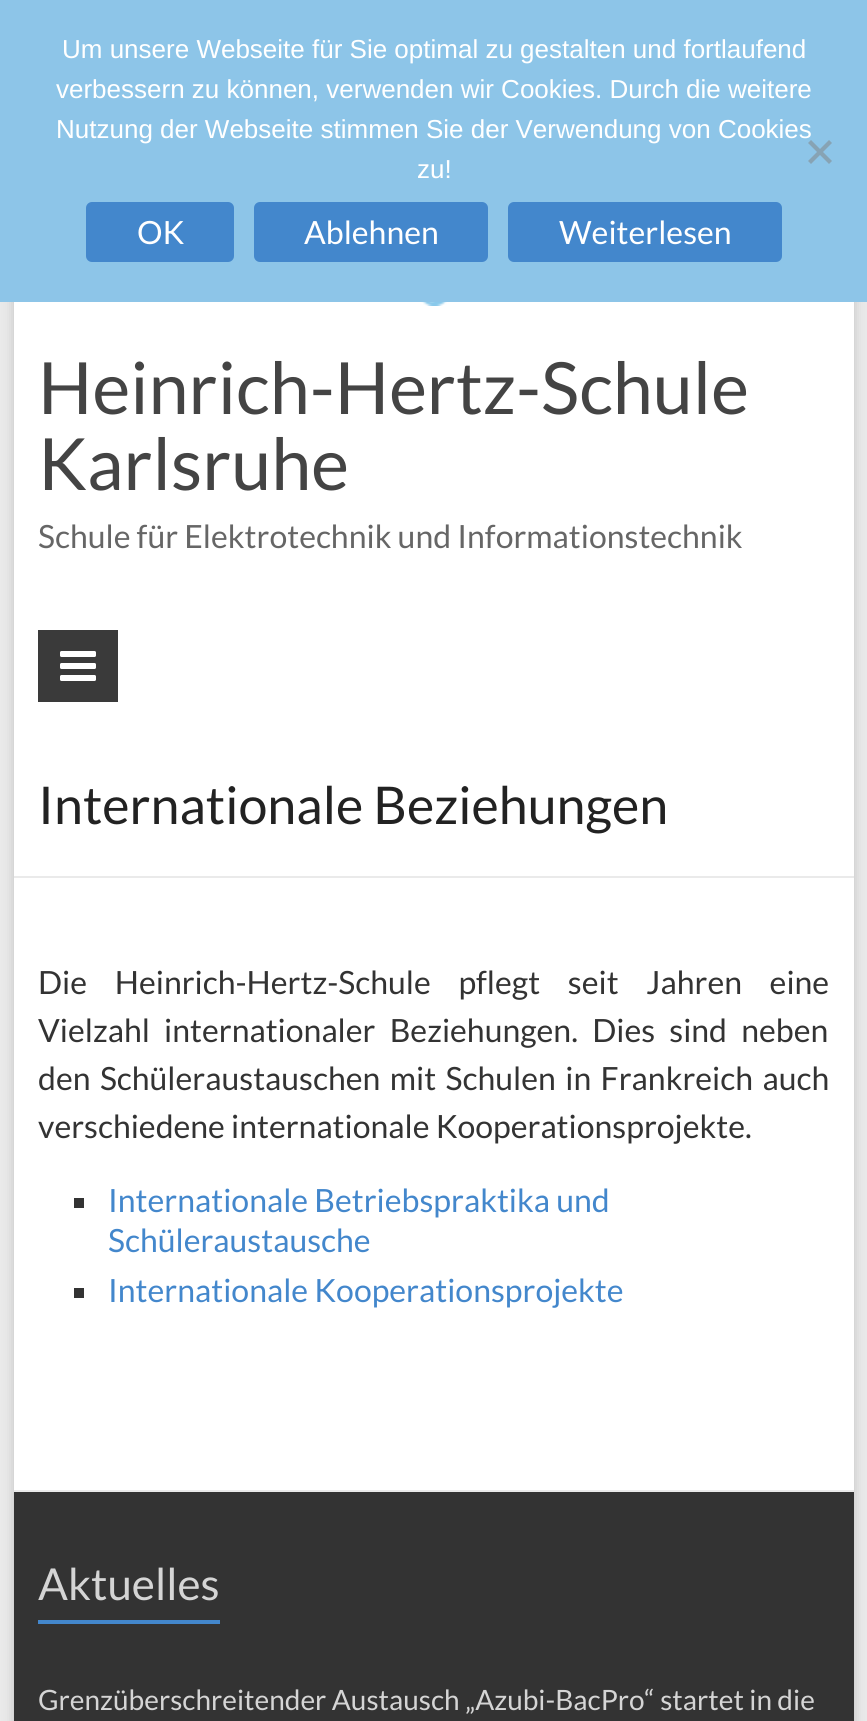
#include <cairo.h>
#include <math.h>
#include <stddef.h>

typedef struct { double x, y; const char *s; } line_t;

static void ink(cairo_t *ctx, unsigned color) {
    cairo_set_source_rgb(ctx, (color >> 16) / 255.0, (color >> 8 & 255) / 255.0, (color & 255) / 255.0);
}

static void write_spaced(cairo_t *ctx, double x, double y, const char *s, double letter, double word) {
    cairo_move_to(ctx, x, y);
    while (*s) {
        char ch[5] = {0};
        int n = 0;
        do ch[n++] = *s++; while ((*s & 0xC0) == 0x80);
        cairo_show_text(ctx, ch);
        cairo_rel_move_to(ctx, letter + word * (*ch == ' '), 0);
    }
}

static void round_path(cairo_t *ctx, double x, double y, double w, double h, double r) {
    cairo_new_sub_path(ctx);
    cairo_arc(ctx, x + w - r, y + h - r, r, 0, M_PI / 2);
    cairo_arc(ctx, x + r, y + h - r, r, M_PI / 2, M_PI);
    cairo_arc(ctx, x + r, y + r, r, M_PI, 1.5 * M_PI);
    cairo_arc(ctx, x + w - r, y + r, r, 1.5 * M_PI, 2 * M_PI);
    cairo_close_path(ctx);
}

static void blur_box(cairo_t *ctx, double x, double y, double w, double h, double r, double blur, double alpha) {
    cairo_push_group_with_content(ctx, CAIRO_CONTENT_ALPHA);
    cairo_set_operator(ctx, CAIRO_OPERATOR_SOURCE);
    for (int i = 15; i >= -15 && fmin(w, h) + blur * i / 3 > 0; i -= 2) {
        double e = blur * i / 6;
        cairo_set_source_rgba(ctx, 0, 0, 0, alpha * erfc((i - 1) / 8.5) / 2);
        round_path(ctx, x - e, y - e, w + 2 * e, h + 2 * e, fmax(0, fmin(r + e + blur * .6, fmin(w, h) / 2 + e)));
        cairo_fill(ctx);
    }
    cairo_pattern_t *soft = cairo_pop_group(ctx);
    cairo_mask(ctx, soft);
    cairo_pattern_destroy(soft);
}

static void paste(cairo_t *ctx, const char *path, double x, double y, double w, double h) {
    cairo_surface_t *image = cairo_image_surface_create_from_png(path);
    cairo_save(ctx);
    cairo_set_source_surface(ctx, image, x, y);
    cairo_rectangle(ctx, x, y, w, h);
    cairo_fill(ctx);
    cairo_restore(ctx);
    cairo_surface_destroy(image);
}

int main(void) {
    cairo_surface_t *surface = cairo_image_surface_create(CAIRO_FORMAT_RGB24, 867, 1721);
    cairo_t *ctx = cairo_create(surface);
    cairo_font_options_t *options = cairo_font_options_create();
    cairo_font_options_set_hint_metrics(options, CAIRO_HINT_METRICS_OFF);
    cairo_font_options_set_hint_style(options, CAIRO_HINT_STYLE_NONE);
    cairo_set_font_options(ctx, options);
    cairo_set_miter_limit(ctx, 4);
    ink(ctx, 0xEAEAEA);
    cairo_paint(ctx);
    ink(ctx, 0x646464);
    blur_box(ctx, 14, 34, 840, 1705, 0, 6, 0.3);
    ink(ctx, 0x8DC5E8);
    cairo_rectangle(ctx, 0, 0, 867, 302);
    cairo_fill(ctx);
    cairo_select_font_face(ctx, "Liberation Sans", CAIRO_FONT_SLANT_NORMAL, CAIRO_FONT_WEIGHT_NORMAL);
    cairo_set_font_size(ctx, 26);
    ink(ctx, 0xFFFFFF);
    {
        static const line_t items[] = {
            {62, 58, "Um unsere Webseite für Sie optimal zu gestalten und fortlaufend"},
            {56, 98, "verbessern zu können, verwenden wir Cookies. Durch die weitere"},
            {56, 138, "Nutzung der Webseite stimmen Sie der Verwendung von Cookies"},
            {417, 178, "zu!"},
        };
        for (size_t i = 0; i < sizeof items / sizeof *items; i++) {
            cairo_move_to(ctx, items[i].x, items[i].y);
            cairo_show_text(ctx, items[i].s);
        }
    }
    ink(ctx, 0x87A3B4);
    cairo_new_path(ctx);
    cairo_move_to(ctx, 829, 140);
    cairo_line_to(ctx, 832, 143);
    cairo_line_to(ctx, 811, 164);
    cairo_line_to(ctx, 808, 161);
    cairo_close_path(ctx);
    cairo_fill(ctx);
    cairo_new_path(ctx);
    cairo_move_to(ctx, 808, 143);
    cairo_line_to(ctx, 811, 140);
    cairo_line_to(ctx, 832, 161);
    cairo_line_to(ctx, 829, 164);
    cairo_close_path(ctx);
    cairo_fill(ctx);
    ink(ctx, 0x4387CC);
    round_path(ctx, 86, 202, 148, 60, 6);
    cairo_fill(ctx);
    cairo_select_font_face(ctx, "Lato", CAIRO_FONT_SLANT_NORMAL, CAIRO_FONT_WEIGHT_NORMAL);
    cairo_set_font_size(ctx, 32);
    ink(ctx, 0xFFFFFF);
    cairo_move_to(ctx, 137, 244);
    cairo_show_text(ctx, "OK");
    ink(ctx, 0x4387CC);
    round_path(ctx, 254, 202, 234, 60, 6);
    cairo_fill(ctx);
    ink(ctx, 0xFFFFFF);
    cairo_move_to(ctx, 304, 244);
    cairo_show_text(ctx, "Ablehnen");
    ink(ctx, 0x4387CC);
    round_path(ctx, 508, 202, 274, 60, 6);
    cairo_fill(ctx);
    ink(ctx, 0xFFFFFF);
    cairo_move_to(ctx, 559, 244);
    cairo_show_text(ctx, "Weiterlesen");
    cairo_rectangle(ctx, 14, 302, 840, 1188);
    cairo_fill(ctx);
    paste(ctx, "media/1.png", 324, 302, 220, 4);
    cairo_set_font_size(ctx, 72);
    ink(ctx, 0x444444);
    cairo_move_to(ctx, 38, 414);
    cairo_show_text(ctx, "Heinrich-Hertz-Schule");
    cairo_move_to(ctx, 38, 490);
    cairo_show_text(ctx, "Karlsruhe");
    cairo_set_font_size(ctx, 32);
    ink(ctx, 0x666666);
    cairo_move_to(ctx, 38, 548);
    cairo_show_text(ctx, "Schule für Elektrotechnik und Informationstechnik");
    ink(ctx, 0x3A3A3A);
    cairo_rectangle(ctx, 38, 630, 80, 72);
    cairo_fill(ctx);
    paste(ctx, "media/2.png", 60, 651, 36, 30);
    ink(ctx, 0xEAEAEA);
    cairo_rectangle(ctx, 14, 876, 840, 2);
    cairo_fill(ctx);
    cairo_set_font_size(ctx, 52);
    ink(ctx, 0x222222);
    cairo_move_to(ctx, 38, 824);
    cairo_show_text(ctx, "Internationale Beziehungen");
    cairo_set_font_size(ctx, 32);
    ink(ctx, 0x333333);
    write_spaced(ctx, 38, 994, "Die Heinrich-Hertz-Schule pflegt seit Jahren eine", 0, 21.5);
    write_spaced(ctx, 38, 1042, "Vielzahl internationaler Beziehungen. Dies sind neben", 0, 8);
    write_spaced(ctx, 38, 1090, "den Schüleraustauschen mit Schulen in Frankreich auch", 0, 3.25);
    cairo_move_to(ctx, 38, 1138);
    cairo_show_text(ctx, "verschiedene internationale Kooperationsprojekte.");
    cairo_rectangle(ctx, 74, 1198, 10, 10);
    cairo_fill(ctx);
    ink(ctx, 0x4387CC);
    cairo_move_to(ctx, 108, 1212);
    cairo_show_text(ctx, "Internationale Betriebspraktika und");
    cairo_move_to(ctx, 108, 1252);
    cairo_show_text(ctx, "Schüleraustausche");
    ink(ctx, 0x333333);
    cairo_rectangle(ctx, 74, 1288, 10, 10);
    cairo_fill(ctx);
    ink(ctx, 0x4387CC);
    cairo_move_to(ctx, 108, 1302);
    cairo_show_text(ctx, "Internationale Kooperationsprojekte");
    ink(ctx, 0x333333);
    cairo_rectangle(ctx, 14, 1492, 840, 229);
    cairo_fill(ctx);
    ink(ctx, 0xEAEAEA);
    cairo_rectangle(ctx, 14, 1490, 840, 2);
    cairo_fill(ctx);
    cairo_set_font_size(ctx, 44);
    ink(ctx, 0xD5D5D5);
    cairo_move_to(ctx, 38, 1600);
    cairo_show_text(ctx, "Aktuelles");
    ink(ctx, 0x4387CC);
    cairo_rectangle(ctx, 38, 1620, 182, 4);
    cairo_fill(ctx);
    cairo_set_font_size(ctx, 28);
    ink(ctx, 0xD5D5D5);
    cairo_move_to(ctx, 38, 1710);
    cairo_show_text(ctx, "Grenzüberschreitender Austausch „Azubi-BacPro“ startet in die");
    cairo_surface_write_to_png(surface, "image.png");
    cairo_font_options_destroy(options);
    cairo_destroy(ctx);
    cairo_surface_destroy(surface);
    return 0;
}
